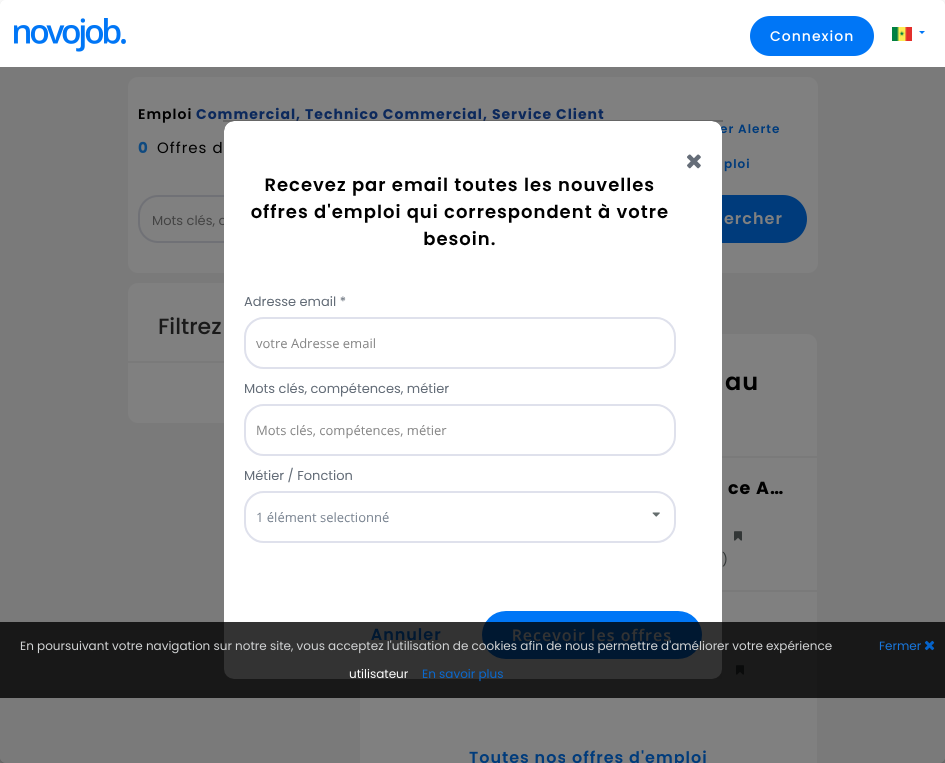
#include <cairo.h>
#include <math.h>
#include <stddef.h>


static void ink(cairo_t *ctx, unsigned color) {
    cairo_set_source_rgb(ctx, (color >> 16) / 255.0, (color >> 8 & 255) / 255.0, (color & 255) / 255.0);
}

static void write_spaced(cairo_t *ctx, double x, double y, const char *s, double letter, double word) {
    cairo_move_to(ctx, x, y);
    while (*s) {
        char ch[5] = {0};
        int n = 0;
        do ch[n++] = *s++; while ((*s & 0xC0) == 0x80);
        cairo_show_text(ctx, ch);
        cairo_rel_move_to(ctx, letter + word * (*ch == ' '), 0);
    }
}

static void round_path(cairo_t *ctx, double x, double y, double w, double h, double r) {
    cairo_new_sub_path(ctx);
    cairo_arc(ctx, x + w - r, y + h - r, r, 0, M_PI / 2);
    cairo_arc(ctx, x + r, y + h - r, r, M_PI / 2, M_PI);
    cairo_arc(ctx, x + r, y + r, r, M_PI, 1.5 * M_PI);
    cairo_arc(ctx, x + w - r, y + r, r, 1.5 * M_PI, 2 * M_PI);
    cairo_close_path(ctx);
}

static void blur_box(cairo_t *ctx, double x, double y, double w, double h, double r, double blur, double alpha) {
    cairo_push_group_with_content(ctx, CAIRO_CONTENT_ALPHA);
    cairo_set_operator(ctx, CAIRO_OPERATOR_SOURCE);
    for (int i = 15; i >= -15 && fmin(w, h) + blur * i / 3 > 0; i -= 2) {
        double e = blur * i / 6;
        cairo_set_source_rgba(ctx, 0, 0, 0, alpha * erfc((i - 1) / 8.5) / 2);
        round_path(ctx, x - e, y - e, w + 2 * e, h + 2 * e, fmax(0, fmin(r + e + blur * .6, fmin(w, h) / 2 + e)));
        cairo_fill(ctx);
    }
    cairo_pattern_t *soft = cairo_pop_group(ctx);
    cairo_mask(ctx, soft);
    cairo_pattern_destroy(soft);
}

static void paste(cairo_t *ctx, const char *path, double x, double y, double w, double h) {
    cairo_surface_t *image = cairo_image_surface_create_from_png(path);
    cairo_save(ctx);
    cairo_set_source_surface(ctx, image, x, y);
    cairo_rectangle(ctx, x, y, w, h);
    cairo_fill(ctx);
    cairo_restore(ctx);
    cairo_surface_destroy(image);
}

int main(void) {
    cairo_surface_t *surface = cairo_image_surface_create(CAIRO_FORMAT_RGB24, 945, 763);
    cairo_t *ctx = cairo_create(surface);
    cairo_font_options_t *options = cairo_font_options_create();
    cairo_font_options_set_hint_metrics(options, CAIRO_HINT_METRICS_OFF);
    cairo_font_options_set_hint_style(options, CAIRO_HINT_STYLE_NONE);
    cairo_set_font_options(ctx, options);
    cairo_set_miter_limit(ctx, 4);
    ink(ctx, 0x7A7A7A);
    cairo_paint(ctx);
    ink(ctx, 0xFFFFFF);
    cairo_rectangle(ctx, 0, 0, 945, 67);
    cairo_fill(ctx);
    paste(ctx, "media/2.png", 14, 18, 112, 34);
    ink(ctx, 0x0076F6);
    round_path(ctx, 750, 16, 124, 40, 20);
    cairo_fill(ctx);
    paste(ctx, "media/3.png", 892, 27, 20, 14);
    cairo_new_path(ctx);
    cairo_move_to(ctx, 919, 31);
    cairo_line_to(ctx, 925, 31);
    cairo_line_to(ctx, 922, 34);
    cairo_close_path(ctx);
    cairo_fill(ctx);
    ink(ctx, 0x808080);
    round_path(ctx, 128, 77, 690, 196, 10);
    cairo_fill(ctx);
    round_path(ctx, 139, 196, 273, 46, 19);
    ink(ctx, 0x707176);
    cairo_stroke(ctx);
    ink(ctx, 0x003B7B);
    round_path(ctx, 645, 195, 162, 48, 24);
    cairo_fill(ctx);
    ink(ctx, 0x808080);
    round_path(ctx, 128, 283, 225, 140, 10);
    cairo_fill(ctx);
    ink(ctx, 0x7A7A7A);
    cairo_rectangle(ctx, 128, 361, 96, 2);
    cairo_fill(ctx);
    ink(ctx, 0x808080);
    round_path(ctx, 360, 334, 457, 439, 10);
    cairo_fill(ctx);
    ink(ctx, 0x7A7A7A);
    cairo_rectangle(ctx, 722, 456, 95, 2);
    cairo_fill(ctx);
    paste(ctx, "media/4.png", 734, 531, 8, 10);
    cairo_rectangle(ctx, 722, 590, 95, 2);
    cairo_fill(ctx);
    paste(ctx, "media/4.png", 736, 665, 8, 10);
    cairo_save(ctx);
    cairo_set_fill_rule(ctx, CAIRO_FILL_RULE_EVEN_ODD);
    cairo_new_path(ctx);
    cairo_move_to(ctx, 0, 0);
    cairo_line_to(ctx, 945, 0);
    cairo_line_to(ctx, 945, 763);
    cairo_line_to(ctx, 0, 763);
    cairo_close_path(ctx);
    cairo_move_to(ctx, 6, 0);
    cairo_line_to(ctx, 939, 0);
    cairo_curve_to(ctx, 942.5, 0, 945, 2.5, 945, 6);
    cairo_line_to(ctx, 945, 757);
    cairo_curve_to(ctx, 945, 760.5, 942.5, 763, 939, 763);
    cairo_line_to(ctx, 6, 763);
    cairo_curve_to(ctx, 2.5, 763, 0, 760.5, 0, 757);
    cairo_line_to(ctx, 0, 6);
    cairo_curve_to(ctx, 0, 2.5, 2.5, 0, 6, 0);
    cairo_close_path(ctx);
    cairo_clip(ctx);
    ink(ctx, 0x000000);
    blur_box(ctx, 0, 3, 945, 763, 6, 3.5, 0.3);
    cairo_restore(ctx);
    cairo_select_font_face(ctx, "Poppins", CAIRO_FONT_SLANT_NORMAL, CAIRO_FONT_WEIGHT_BOLD);
    cairo_set_font_size(ctx, 14);
    ink(ctx, 0x0C295C);
    write_spaced(ctx, 196, 119, "Commercial, Technico Commercial, Service Client", 1, 0);
    cairo_set_source_rgba(ctx, 0, 0, 0, 0.2);
    cairo_rectangle(ctx, 223, 120, 500, 2);
    cairo_fill(ctx);
    cairo_select_font_face(ctx, "Poppins SemiBold", CAIRO_FONT_SLANT_NORMAL, CAIRO_FONT_WEIGHT_NORMAL);
    cairo_set_font_size(ctx, 12);
    ink(ctx, 0x003B7B);
    write_spaced(ctx, 720, 133, "er Alerte", 1, 0);
    cairo_select_font_face(ctx, "Poppins", CAIRO_FONT_SLANT_NORMAL, CAIRO_FONT_WEIGHT_NORMAL);
    cairo_set_font_size(ctx, 13);
    ink(ctx, 0x434343);
    cairo_move_to(ctx, 152, 225);
    cairo_show_text(ctx, "Mots clés, c");
    paste(ctx, "media/1.png", 224, 121, 498, 558);
    cairo_select_font_face(ctx, "Poppins Medium", CAIRO_FONT_SLANT_NORMAL, CAIRO_FONT_WEIGHT_NORMAL);
    cairo_set_font_size(ctx, 14);
    ink(ctx, 0xFFFFFF);
    write_spaced(ctx, 770, 41, "Connexion", 1, 0);
    cairo_select_font_face(ctx, "Poppins SemiBold", CAIRO_FONT_SLANT_NORMAL, CAIRO_FONT_WEIGHT_NORMAL);
    ink(ctx, 0x000000);
    write_spaced(ctx, 138, 119, "Emploi", 1, 0);
    cairo_select_font_face(ctx, "Poppins", CAIRO_FONT_SLANT_NORMAL, CAIRO_FONT_WEIGHT_BOLD);
    cairo_set_font_size(ctx, 15);
    ink(ctx, 0x0F4A80);
    cairo_move_to(ctx, 138, 153);
    cairo_show_text(ctx, "0");
    cairo_select_font_face(ctx, "Poppins", CAIRO_FONT_SLANT_NORMAL, CAIRO_FONT_WEIGHT_NORMAL);
    ink(ctx, 0x000000);
    write_spaced(ctx, 157, 153, "Offres d", 1, 0);
    cairo_select_font_face(ctx, "Poppins SemiBold", CAIRO_FONT_SLANT_NORMAL, CAIRO_FONT_WEIGHT_NORMAL);
    cairo_set_font_size(ctx, 12);
    ink(ctx, 0x003B7B);
    write_spaced(ctx, 724, 168, "ploi", 1, 0);
    cairo_set_font_size(ctx, 16);
    ink(ctx, 0x808080);
    write_spaced(ctx, 724, 224, "ercher", 1, 0);
    cairo_select_font_face(ctx, "Poppins Medium", CAIRO_FONT_SLANT_NORMAL, CAIRO_FONT_WEIGHT_NORMAL);
    cairo_set_font_size(ctx, 22);
    ink(ctx, 0x1A1A1A);
    cairo_move_to(ctx, 158, 334);
    cairo_show_text(ctx, "Filtrez");
    cairo_select_font_face(ctx, "Poppins SemiBold", CAIRO_FONT_SLANT_NORMAL, CAIRO_FONT_WEIGHT_NORMAL);
    cairo_set_font_size(ctx, 24);
    ink(ctx, 0x000000);
    write_spaced(ctx, 725, 390, "au", 1, 0);
    cairo_select_font_face(ctx, "Poppins", CAIRO_FONT_SLANT_NORMAL, CAIRO_FONT_WEIGHT_BOLD);
    cairo_set_font_size(ctx, 17.5);
    write_spaced(ctx, 728, 494, "ce A…", 1, 0);
    cairo_select_font_face(ctx, "Poppins", CAIRO_FONT_SLANT_NORMAL, CAIRO_FONT_WEIGHT_NORMAL);
    cairo_set_font_size(ctx, 13);
    ink(ctx, 0x333737);
    cairo_move_to(ctx, 722, 564);
    cairo_show_text(ctx, ")");
    cairo_select_font_face(ctx, "Poppins SemiBold", CAIRO_FONT_SLANT_NORMAL, CAIRO_FONT_WEIGHT_NORMAL);
    cairo_set_font_size(ctx, 16);
    ink(ctx, 0x003B7B);
    write_spaced(ctx, 469, 763, "Toutes nos offres d'emploi", 1, 0);
    cairo_set_source_rgba(ctx, 0, 0, 0, 0.8);
    cairo_rectangle(ctx, 0, 622, 945, 76);
    cairo_fill(ctx);
    cairo_select_font_face(ctx, "Poppins", CAIRO_FONT_SLANT_NORMAL, CAIRO_FONT_WEIGHT_NORMAL);
    cairo_set_font_size(ctx, 12);
    ink(ctx, 0xD1D3D4);
    cairo_move_to(ctx, 20, 650);
    cairo_show_text(ctx, "En poursuivant votre navigation sur notre site, vous acceptez l'utilisation de cookies afin de nous permettre d'améliorer votre expérience");
    ink(ctx, 0xFFFFFF);
    cairo_move_to(ctx, 349, 678);
    cairo_show_text(ctx, "utilisateur");
    ink(ctx, 0x0A69CF);
    cairo_move_to(ctx, 422, 678);
    cairo_show_text(ctx, "En savoir plus");
    ink(ctx, 0x1877DD);
    cairo_move_to(ctx, 879, 650);
    cairo_show_text(ctx, "Fermer");
    paste(ctx, "media/5.png", 924, 640, 11, 11);
    cairo_surface_write_to_png(surface, "image.png");
    cairo_font_options_destroy(options);
    cairo_destroy(ctx);
    cairo_surface_destroy(surface);
    return 0;
}
